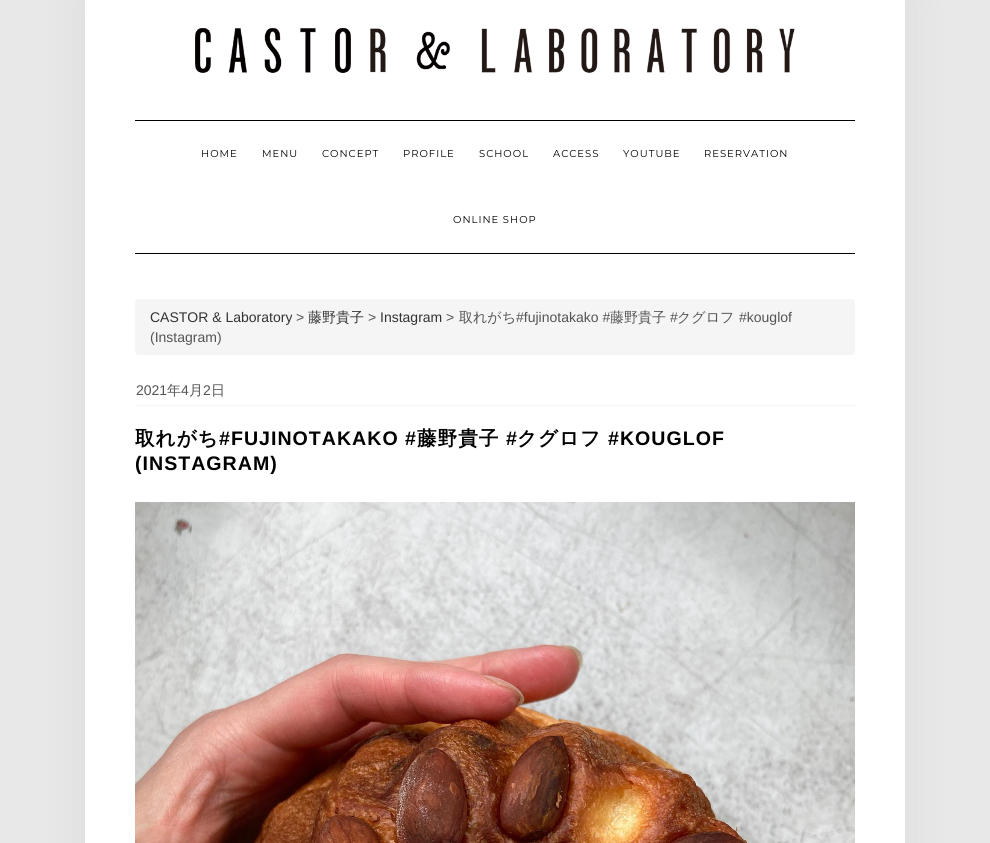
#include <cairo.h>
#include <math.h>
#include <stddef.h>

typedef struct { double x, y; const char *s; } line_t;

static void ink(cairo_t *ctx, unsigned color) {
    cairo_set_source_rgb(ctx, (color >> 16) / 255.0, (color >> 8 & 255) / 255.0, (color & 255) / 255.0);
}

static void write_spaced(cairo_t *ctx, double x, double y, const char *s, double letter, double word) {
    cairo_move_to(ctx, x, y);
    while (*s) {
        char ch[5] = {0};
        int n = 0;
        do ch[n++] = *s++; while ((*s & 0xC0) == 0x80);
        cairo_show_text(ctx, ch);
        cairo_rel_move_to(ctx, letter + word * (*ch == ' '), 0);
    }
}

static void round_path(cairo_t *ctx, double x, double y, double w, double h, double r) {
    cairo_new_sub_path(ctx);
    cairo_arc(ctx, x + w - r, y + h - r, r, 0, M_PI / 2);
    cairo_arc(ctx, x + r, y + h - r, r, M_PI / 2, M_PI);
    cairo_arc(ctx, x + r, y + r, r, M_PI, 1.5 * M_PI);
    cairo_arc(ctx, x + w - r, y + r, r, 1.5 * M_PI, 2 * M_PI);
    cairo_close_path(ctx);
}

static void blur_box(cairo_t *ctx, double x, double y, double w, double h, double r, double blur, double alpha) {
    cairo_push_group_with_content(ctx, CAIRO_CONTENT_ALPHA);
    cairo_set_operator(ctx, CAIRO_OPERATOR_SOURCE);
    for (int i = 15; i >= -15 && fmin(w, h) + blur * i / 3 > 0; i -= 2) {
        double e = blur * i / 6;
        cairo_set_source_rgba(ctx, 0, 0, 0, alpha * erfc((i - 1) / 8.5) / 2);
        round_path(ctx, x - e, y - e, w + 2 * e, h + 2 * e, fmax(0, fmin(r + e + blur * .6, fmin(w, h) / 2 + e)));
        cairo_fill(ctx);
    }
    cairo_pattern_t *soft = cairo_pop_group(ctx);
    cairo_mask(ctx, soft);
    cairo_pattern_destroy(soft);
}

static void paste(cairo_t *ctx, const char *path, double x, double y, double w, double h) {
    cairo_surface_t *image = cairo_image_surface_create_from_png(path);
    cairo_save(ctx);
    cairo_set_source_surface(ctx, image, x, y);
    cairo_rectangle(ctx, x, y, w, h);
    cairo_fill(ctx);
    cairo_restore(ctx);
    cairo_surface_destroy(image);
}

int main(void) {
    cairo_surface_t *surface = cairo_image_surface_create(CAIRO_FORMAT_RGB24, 990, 843);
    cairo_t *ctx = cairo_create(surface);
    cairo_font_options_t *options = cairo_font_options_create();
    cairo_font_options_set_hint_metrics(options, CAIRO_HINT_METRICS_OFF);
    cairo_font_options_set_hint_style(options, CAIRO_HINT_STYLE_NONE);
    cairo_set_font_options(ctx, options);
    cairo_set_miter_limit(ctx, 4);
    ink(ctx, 0xE8E8E8);
    cairo_paint(ctx);
    ink(ctx, 0x000000);
    blur_box(ctx, 85, 0, 820, 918, 0, 25, 0.06);
    ink(ctx, 0xFFFFFF);
    cairo_rectangle(ctx, 85, 0, 820, 843);
    cairo_fill(ctx);
    paste(ctx, "media/1.png", 195, 28, 600, 45);
    ink(ctx, 0x000000);
    cairo_rectangle(ctx, 135, 120, 720, 1);
    cairo_fill(ctx);
    cairo_rectangle(ctx, 135, 253, 720, 1);
    cairo_fill(ctx);
    cairo_select_font_face(ctx, "Montserrat", CAIRO_FONT_SLANT_NORMAL, CAIRO_FONT_WEIGHT_NORMAL);
    cairo_set_font_size(ctx, 10);
    {
        static const line_t items[] = {
            {201, 157, "HOME"},
            {262, 157, "MENU"},
            {322, 157, "CONCEPT"},
            {403, 157, "PROFILE"},
            {479, 157, "SCHOOL"},
            {553, 157, "ACCESS"},
            {623, 157, "YOUTUBE"},
            {704, 157, "RESERVATION"},
            {453, 223, "ONLINE SHOP"},
        };
        for (size_t i = 0; i < sizeof items / sizeof *items; i++) {
            write_spaced(ctx, items[i].x, items[i].y, items[i].s, 1, 0);
        }
    }
    ink(ctx, 0xF5F5F5);
    round_path(ctx, 135, 299, 720, 56, 4);
    cairo_fill(ctx);
    cairo_select_font_face(ctx, "Liberation Sans", CAIRO_FONT_SLANT_NORMAL, CAIRO_FONT_WEIGHT_NORMAL);
    cairo_set_font_size(ctx, 14);
    ink(ctx, 0x333333);
    cairo_move_to(ctx, 150, 322);
    cairo_show_text(ctx, "CASTOR & Laboratory");
    ink(ctx, 0x545454);
    cairo_move_to(ctx, 296, 322);
    cairo_show_text(ctx, ">");
    cairo_select_font_face(ctx, "WenQuanYi Zen Hei Medium", CAIRO_FONT_SLANT_NORMAL, CAIRO_FONT_WEIGHT_NORMAL);
    ink(ctx, 0x333333);
    cairo_move_to(ctx, 308, 322);
    cairo_show_text(ctx, "藤野貴子");
    cairo_select_font_face(ctx, "Liberation Sans", CAIRO_FONT_SLANT_NORMAL, CAIRO_FONT_WEIGHT_NORMAL);
    ink(ctx, 0x545454);
    cairo_move_to(ctx, 368, 322);
    cairo_show_text(ctx, ">");
    ink(ctx, 0x333333);
    cairo_move_to(ctx, 380, 322);
    cairo_show_text(ctx, "Instagram");
    ink(ctx, 0x545454);
    cairo_move_to(ctx, 446, 322);
    cairo_show_text(ctx, ">");
    cairo_select_font_face(ctx, "WenQuanYi Zen Hei Medium", CAIRO_FONT_SLANT_NORMAL, CAIRO_FONT_WEIGHT_NORMAL);
    cairo_move_to(ctx, 459, 322);
    cairo_show_text(ctx, "取れがち");
    cairo_select_font_face(ctx, "Liberation Sans", CAIRO_FONT_SLANT_NORMAL, CAIRO_FONT_WEIGHT_NORMAL);
    cairo_move_to(ctx, 516, 322);
    cairo_show_text(ctx, "#fujinotakako #");
    cairo_select_font_face(ctx, "WenQuanYi Zen Hei Medium", CAIRO_FONT_SLANT_NORMAL, CAIRO_FONT_WEIGHT_NORMAL);
    cairo_move_to(ctx, 610, 322);
    cairo_show_text(ctx, "藤野貴子");
    cairo_select_font_face(ctx, "Liberation Sans", CAIRO_FONT_SLANT_NORMAL, CAIRO_FONT_WEIGHT_NORMAL);
    cairo_move_to(ctx, 670, 322);
    cairo_show_text(ctx, "#");
    cairo_select_font_face(ctx, "WenQuanYi Zen Hei Medium", CAIRO_FONT_SLANT_NORMAL, CAIRO_FONT_WEIGHT_NORMAL);
    cairo_move_to(ctx, 677, 322);
    cairo_show_text(ctx, "クグロフ");
    cairo_select_font_face(ctx, "Liberation Sans", CAIRO_FONT_SLANT_NORMAL, CAIRO_FONT_WEIGHT_NORMAL);
    cairo_move_to(ctx, 739, 322);
    cairo_show_text(ctx, "#kouglof");
    cairo_move_to(ctx, 150, 342);
    cairo_show_text(ctx, "(Instagram)");
    cairo_new_path(ctx);
    cairo_move_to(ctx, 136, 405.5);
    cairo_line_to(ctx, 856, 405.5);
    ink(ctx, 0xEEEEEE);
    cairo_set_line_width(ctx, 1);
    cairo_set_dash(ctx, (double[]){1, 1}, 2, 0);
    cairo_stroke(ctx);
    ink(ctx, 0x545454);
    cairo_move_to(ctx, 136, 395);
    cairo_show_text(ctx, "2021");
    cairo_select_font_face(ctx, "WenQuanYi Zen Hei Medium", CAIRO_FONT_SLANT_NORMAL, CAIRO_FONT_WEIGHT_NORMAL);
    cairo_move_to(ctx, 167, 395);
    cairo_show_text(ctx, "年");
    cairo_select_font_face(ctx, "Liberation Sans", CAIRO_FONT_SLANT_NORMAL, CAIRO_FONT_WEIGHT_NORMAL);
    cairo_move_to(ctx, 181, 395);
    cairo_show_text(ctx, "4");
    cairo_select_font_face(ctx, "WenQuanYi Zen Hei Medium", CAIRO_FONT_SLANT_NORMAL, CAIRO_FONT_WEIGHT_NORMAL);
    cairo_move_to(ctx, 189, 395);
    cairo_show_text(ctx, "月");
    cairo_select_font_face(ctx, "Liberation Sans", CAIRO_FONT_SLANT_NORMAL, CAIRO_FONT_WEIGHT_NORMAL);
    cairo_move_to(ctx, 203, 395);
    cairo_show_text(ctx, "2");
    cairo_select_font_face(ctx, "WenQuanYi Zen Hei Medium", CAIRO_FONT_SLANT_NORMAL, CAIRO_FONT_WEIGHT_NORMAL);
    cairo_move_to(ctx, 211, 395);
    cairo_show_text(ctx, "日");
    cairo_select_font_face(ctx, "WenQuanYi Zen Hei", CAIRO_FONT_SLANT_NORMAL, CAIRO_FONT_WEIGHT_BOLD);
    cairo_set_font_size(ctx, 19.6);
    ink(ctx, 0x000000);
    write_spaced(ctx, 135, 445, "取れがち", 1, 0);
    cairo_select_font_face(ctx, "Liberation Sans", CAIRO_FONT_SLANT_NORMAL, CAIRO_FONT_WEIGHT_BOLD);
    write_spaced(ctx, 219, 445, "#FUJINOTAKAKO #", 1, 0);
    cairo_select_font_face(ctx, "WenQuanYi Zen Hei", CAIRO_FONT_SLANT_NORMAL, CAIRO_FONT_WEIGHT_BOLD);
    write_spaced(ctx, 417, 445, "藤野貴子", 1, 0);
    cairo_select_font_face(ctx, "Liberation Sans", CAIRO_FONT_SLANT_NORMAL, CAIRO_FONT_WEIGHT_BOLD);
    write_spaced(ctx, 506, 445, "#", 1, 0);
    cairo_select_font_face(ctx, "WenQuanYi Zen Hei", CAIRO_FONT_SLANT_NORMAL, CAIRO_FONT_WEIGHT_BOLD);
    write_spaced(ctx, 517, 445, "クグロフ", 1, 0);
    cairo_select_font_face(ctx, "Liberation Sans", CAIRO_FONT_SLANT_NORMAL, CAIRO_FONT_WEIGHT_BOLD);
    write_spaced(ctx, 608, 445, "#KOUGLOF", 1, 0);
    write_spaced(ctx, 135, 470, "(INSTAGRAM)", 1, 0);
    paste(ctx, "media/2.png", 135, 502, 720, 341);
    cairo_surface_write_to_png(surface, "image.png");
    cairo_font_options_destroy(options);
    cairo_destroy(ctx);
    cairo_surface_destroy(surface);
    return 0;
}
